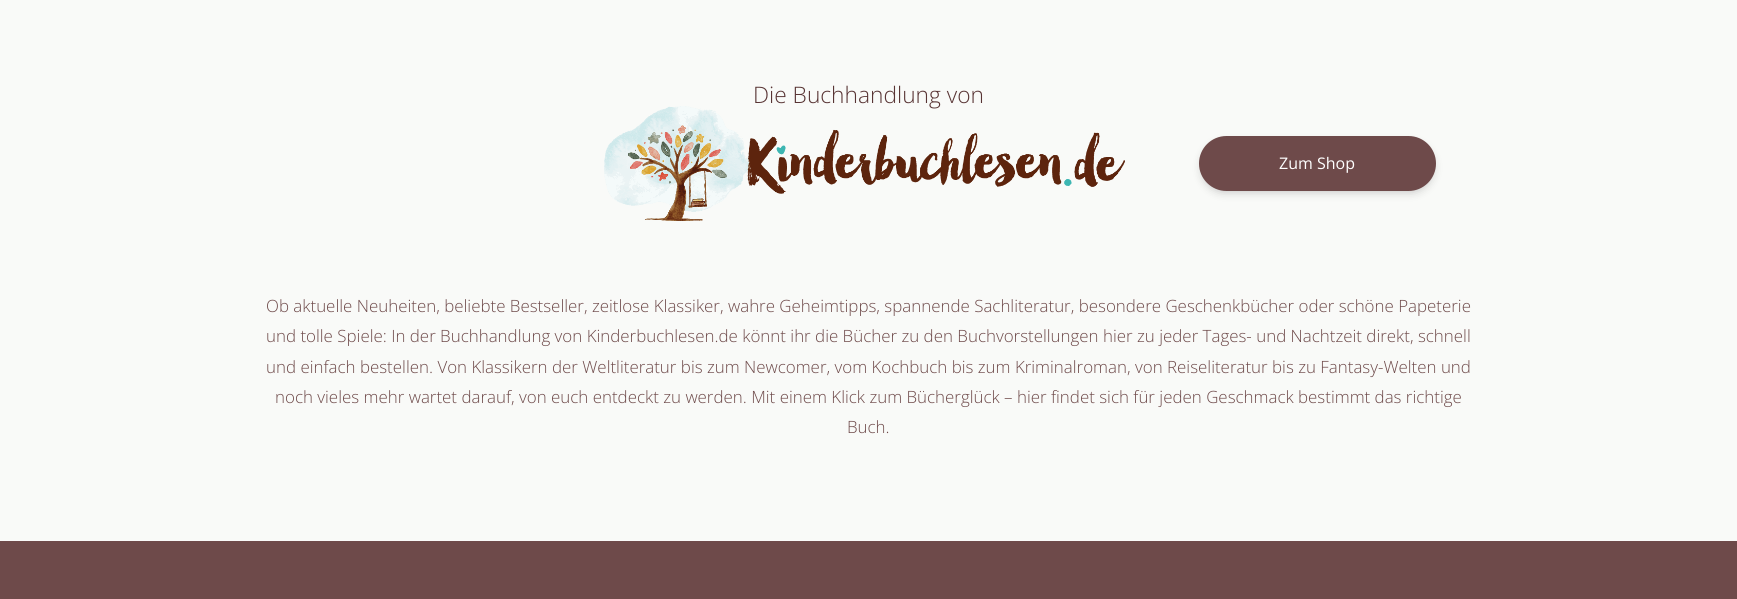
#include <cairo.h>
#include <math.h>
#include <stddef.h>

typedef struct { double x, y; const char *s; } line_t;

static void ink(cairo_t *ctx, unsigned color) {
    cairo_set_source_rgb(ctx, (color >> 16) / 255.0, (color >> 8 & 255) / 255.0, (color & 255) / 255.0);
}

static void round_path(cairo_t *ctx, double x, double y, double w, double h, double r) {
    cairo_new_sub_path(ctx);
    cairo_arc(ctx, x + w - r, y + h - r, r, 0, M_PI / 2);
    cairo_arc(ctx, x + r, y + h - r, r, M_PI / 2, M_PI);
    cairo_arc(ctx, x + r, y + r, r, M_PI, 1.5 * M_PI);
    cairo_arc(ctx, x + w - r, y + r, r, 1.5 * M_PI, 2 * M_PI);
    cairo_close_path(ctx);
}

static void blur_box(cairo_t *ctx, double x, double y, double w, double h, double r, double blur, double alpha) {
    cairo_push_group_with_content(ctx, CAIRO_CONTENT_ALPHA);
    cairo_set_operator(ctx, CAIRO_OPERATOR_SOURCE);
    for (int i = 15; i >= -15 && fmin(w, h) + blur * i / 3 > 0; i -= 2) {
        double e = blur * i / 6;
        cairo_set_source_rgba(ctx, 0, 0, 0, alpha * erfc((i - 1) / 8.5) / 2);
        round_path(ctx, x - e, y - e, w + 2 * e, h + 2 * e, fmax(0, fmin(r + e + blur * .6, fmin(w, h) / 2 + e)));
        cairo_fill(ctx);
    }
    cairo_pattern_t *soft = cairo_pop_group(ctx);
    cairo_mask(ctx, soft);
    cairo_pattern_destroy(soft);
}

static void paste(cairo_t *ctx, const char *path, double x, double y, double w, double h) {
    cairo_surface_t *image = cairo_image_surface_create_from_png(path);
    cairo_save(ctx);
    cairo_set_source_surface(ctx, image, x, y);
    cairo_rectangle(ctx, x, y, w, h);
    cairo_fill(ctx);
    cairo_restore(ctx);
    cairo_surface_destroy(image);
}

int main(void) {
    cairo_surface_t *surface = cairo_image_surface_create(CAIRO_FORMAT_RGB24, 1737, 599);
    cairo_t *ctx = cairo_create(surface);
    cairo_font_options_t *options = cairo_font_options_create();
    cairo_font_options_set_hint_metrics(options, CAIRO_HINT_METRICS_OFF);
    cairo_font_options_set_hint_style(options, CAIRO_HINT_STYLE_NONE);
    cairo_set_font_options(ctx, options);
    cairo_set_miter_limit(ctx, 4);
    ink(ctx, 0xF9FAF8);
    cairo_paint(ctx);
    cairo_select_font_face(ctx, "Open Sans Light", CAIRO_FONT_SLANT_NORMAL, CAIRO_FONT_WEIGHT_NORMAL);
    cairo_set_font_size(ctx, 22.75);
    ink(ctx, 0x583434);
    cairo_move_to(ctx, 753, 103);
    cairo_show_text(ctx, "Die Buchhandlung von");
    paste(ctx, "media/1.png", 604, 106, 521, 115);
    ink(ctx, 0x000000);
    blur_box(ctx, 1203, 144, 229, 47, 23.5, 5, 0.26);
    ink(ctx, 0x6E4A4A);
    round_path(ctx, 1200, 137, 235, 53, 26.5);
    cairo_fill_preserve(ctx);
    cairo_stroke(ctx);
    cairo_select_font_face(ctx, "Open Sans", CAIRO_FONT_SLANT_NORMAL, CAIRO_FONT_WEIGHT_NORMAL);
    cairo_set_font_size(ctx, 16);
    ink(ctx, 0xFFFFFF);
    cairo_move_to(ctx, 1279, 169);
    cairo_show_text(ctx, "Zum Shop");
    cairo_select_font_face(ctx, "Open Sans Light", CAIRO_FONT_SLANT_NORMAL, CAIRO_FONT_WEIGHT_NORMAL);
    cairo_set_font_size(ctx, 16.9);
    ink(ctx, 0x6E4A4A);
    {
        static const line_t items[] = {
            {266, 312, "Ob aktuelle Neuheiten, beliebte Bestseller, zeitlose Klassiker, wahre Geheimtipps, spannende Sachliteratur, besondere Geschenkbücher oder schöne Papeterie"},
            {266, 342, "und tolle Spiele: In der Buchhandlung von Kinderbuchlesen.de könnt ihr die Bücher zu den Buchvorstellungen hier zu jeder Tages- und Nachtzeit direkt, schnell"},
            {266, 373, "und einfach bestellen. Von Klassikern der Weltliteratur bis zum Newcomer, vom Kochbuch bis zum Kriminalroman, von Reiseliteratur bis zu Fantasy-Welten und"},
            {275, 403, "noch vieles mehr wartet darauf, von euch entdeckt zu werden. Mit einem Klick zum Bücherglück – hier findet sich für jeden Geschmack bestimmt das richtige"},
            {847, 433, "Buch."},
        };
        for (size_t i = 0; i < sizeof items / sizeof *items; i++) {
            cairo_move_to(ctx, items[i].x, items[i].y);
            cairo_show_text(ctx, items[i].s);
        }
    }
    cairo_rectangle(ctx, 0, 541, 1737, 58);
    cairo_fill(ctx);
    cairo_surface_write_to_png(surface, "image.png");
    cairo_font_options_destroy(options);
    cairo_destroy(ctx);
    cairo_surface_destroy(surface);
    return 0;
}
